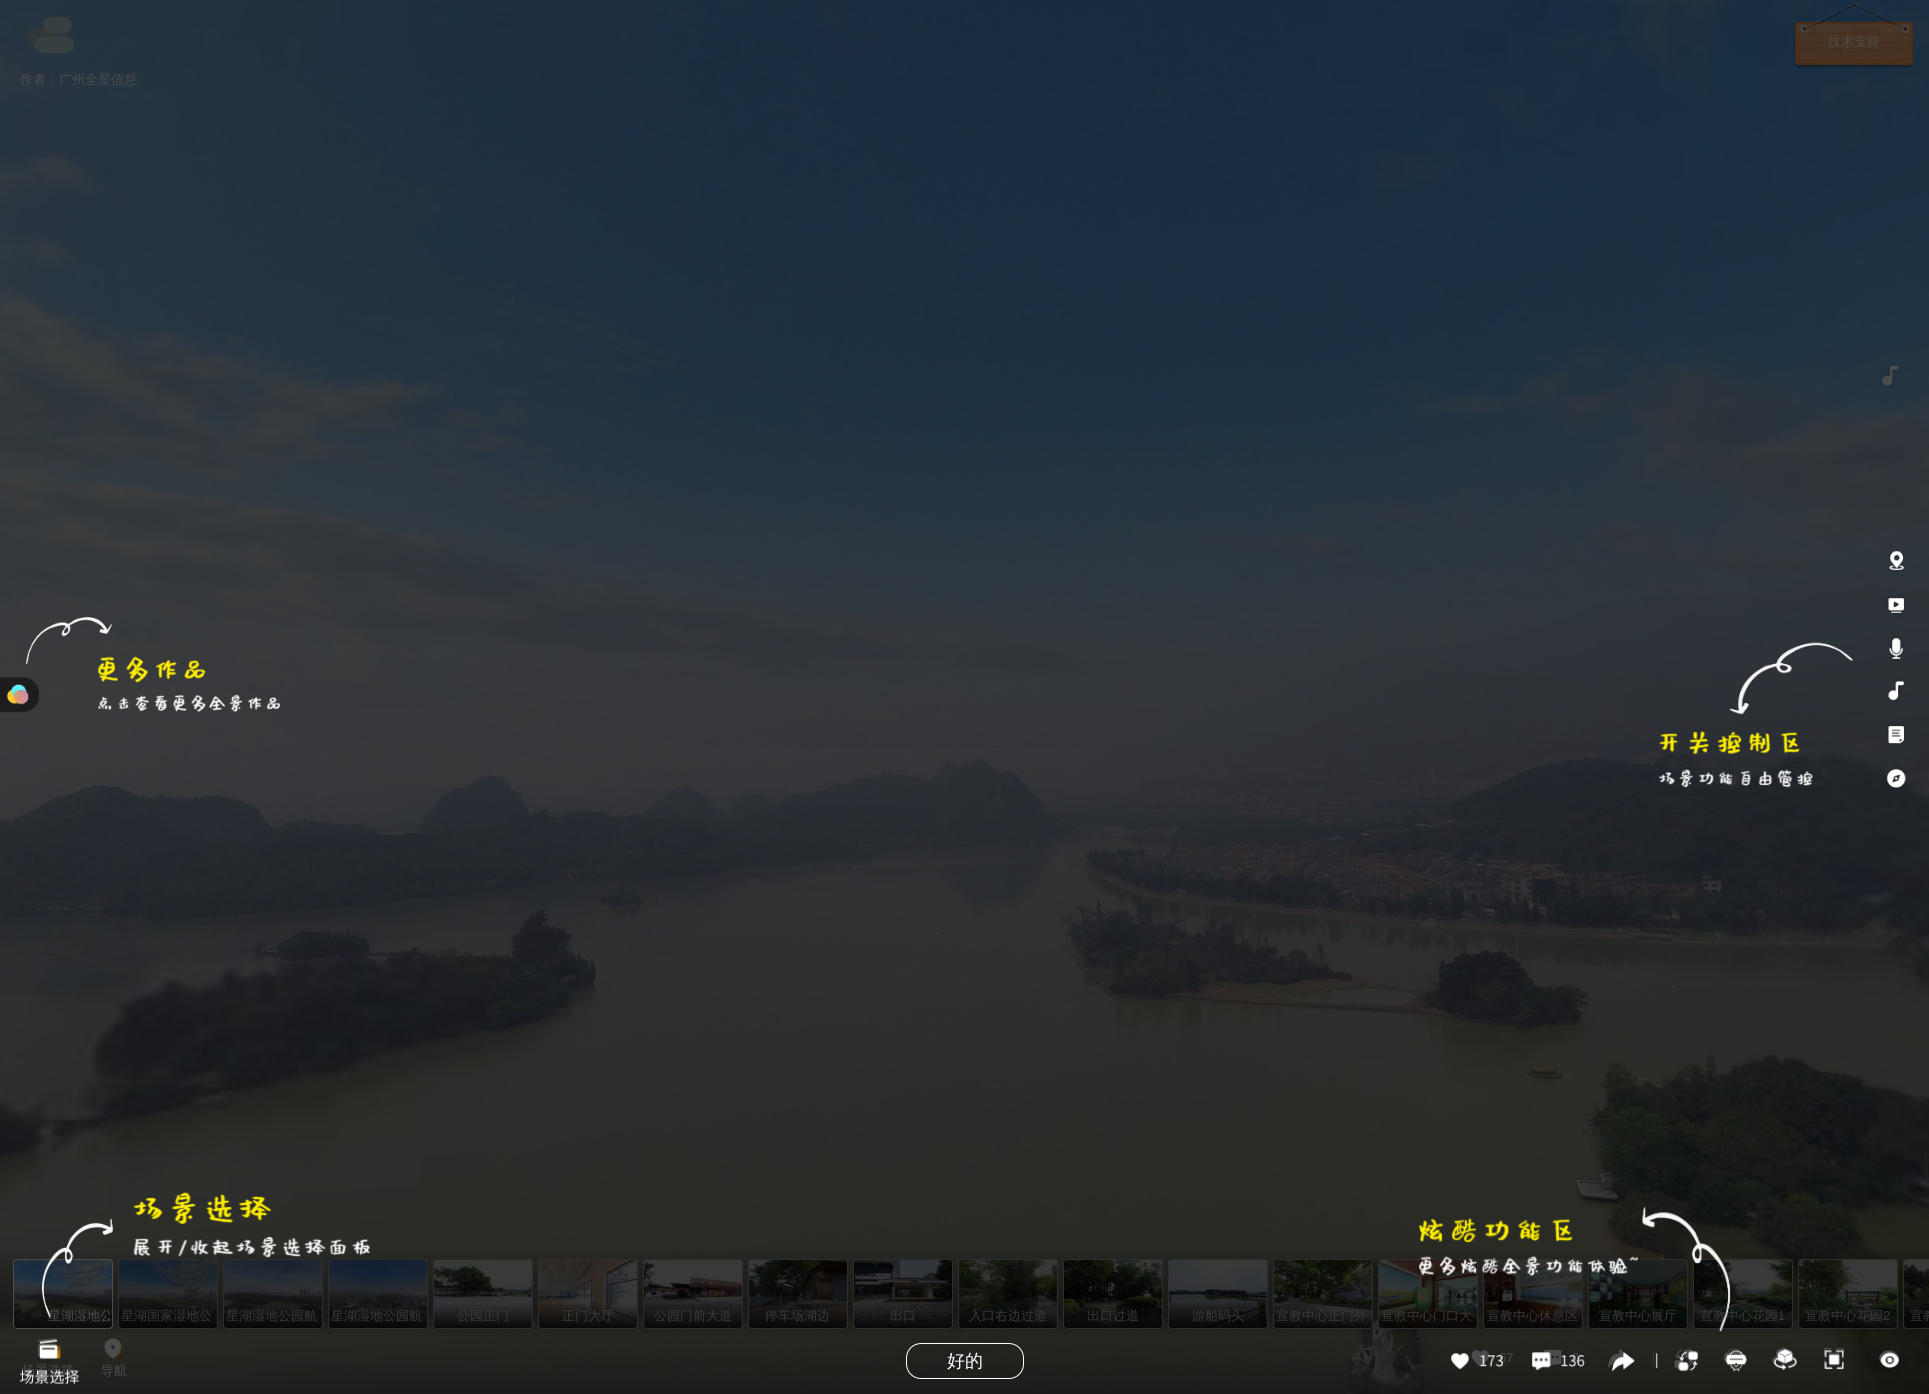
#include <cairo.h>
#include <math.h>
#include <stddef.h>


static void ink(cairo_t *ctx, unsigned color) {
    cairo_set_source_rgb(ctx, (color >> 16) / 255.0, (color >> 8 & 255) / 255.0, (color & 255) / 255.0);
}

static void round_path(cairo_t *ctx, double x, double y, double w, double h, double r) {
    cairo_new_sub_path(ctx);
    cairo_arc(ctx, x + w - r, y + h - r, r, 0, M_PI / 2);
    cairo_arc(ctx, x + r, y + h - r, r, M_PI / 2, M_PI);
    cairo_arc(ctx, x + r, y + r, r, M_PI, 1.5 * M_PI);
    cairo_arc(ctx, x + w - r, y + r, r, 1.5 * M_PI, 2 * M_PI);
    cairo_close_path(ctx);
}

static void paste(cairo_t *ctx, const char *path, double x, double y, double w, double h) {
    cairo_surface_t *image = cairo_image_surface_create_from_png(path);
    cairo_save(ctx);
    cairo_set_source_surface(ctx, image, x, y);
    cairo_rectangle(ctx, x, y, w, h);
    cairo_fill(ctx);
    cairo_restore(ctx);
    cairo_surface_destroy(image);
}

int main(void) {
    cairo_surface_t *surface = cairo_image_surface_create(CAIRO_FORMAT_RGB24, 1929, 1394);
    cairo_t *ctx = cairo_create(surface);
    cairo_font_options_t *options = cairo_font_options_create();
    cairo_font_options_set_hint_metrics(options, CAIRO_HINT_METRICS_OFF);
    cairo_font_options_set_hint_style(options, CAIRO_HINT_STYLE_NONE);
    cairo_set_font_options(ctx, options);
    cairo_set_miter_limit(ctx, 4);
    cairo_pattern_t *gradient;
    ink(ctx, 0xFFFFFF);
    cairo_paint(ctx);
    paste(ctx, "media/1.png", 0, 0, 1929, 1394);
    paste(ctx, "media/2.png", 1793, 3, 121, 66);
    cairo_select_font_face(ctx, "WenQuanYi Zen Hei Medium", CAIRO_FONT_SLANT_NORMAL, CAIRO_FONT_WEIGHT_NORMAL);
    cairo_set_font_size(ctx, 13);
    ink(ctx, 0x4D4D4D);
    cairo_move_to(ctx, 1828, 46);
    cairo_show_text(ctx, "技术支持");
    paste(ctx, "media/3.png", 26, 16, 48, 38);
    cairo_move_to(ctx, 20, 84);
    cairo_show_text(ctx, "作者：广州全景信息");
    paste(ctx, "media/4.png", 1879, 362, 22, 27);
    paste(ctx, "media/5.png", 13, 1259, 100, 70);
    gradient = cairo_pattern_create_linear(63, 1329, 63, 1303);
    cairo_pattern_add_color_stop_rgba(gradient, 0, 0.302, 0.106, 0.137, 1);
    cairo_pattern_add_color_stop_rgba(gradient, 0, 0.031, 0.035, 0.043, 1);
    cairo_pattern_add_color_stop_rgba(gradient, 1, 0.031, 0.035, 0.043, 0);
    cairo_set_source(ctx, gradient);
    cairo_pattern_destroy(gradient);
    cairo_new_path(ctx);
    cairo_move_to(ctx, 13, 1303);
    cairo_line_to(ctx, 113, 1303);
    cairo_line_to(ctx, 113, 1325);
    cairo_curve_to(ctx, 113, 1327, 111, 1329, 109, 1329);
    cairo_line_to(ctx, 17, 1329);
    cairo_curve_to(ctx, 15, 1329, 13, 1327, 13, 1325);
    cairo_close_path(ctx);
    cairo_fill(ctx);
    round_path(ctx, 13.5, 1259.5, 99, 69, 3.5);
    ink(ctx, 0x4D4D4D);
    cairo_set_line_width(ctx, 1);
    cairo_stroke(ctx);
    cairo_save(ctx);
    cairo_rectangle(ctx, 16, 1303, 94, 26);
    cairo_clip(ctx);
    cairo_move_to(ctx, 48, 1320);
    cairo_show_text(ctx, "星湖湿地公");
    cairo_restore(ctx);
    paste(ctx, "media/6.png", 118, 1259, 100, 70);
    gradient = cairo_pattern_create_linear(168, 1329, 168, 1303);
    cairo_pattern_add_color_stop_rgba(gradient, 0, 0.302, 0.106, 0.137, 1);
    cairo_pattern_add_color_stop_rgba(gradient, 0, 0.031, 0.035, 0.043, 1);
    cairo_pattern_add_color_stop_rgba(gradient, 1, 0.031, 0.035, 0.043, 0);
    cairo_set_source(ctx, gradient);
    cairo_pattern_destroy(gradient);
    cairo_new_path(ctx);
    cairo_move_to(ctx, 118, 1303);
    cairo_line_to(ctx, 218, 1303);
    cairo_line_to(ctx, 218, 1325);
    cairo_curve_to(ctx, 218, 1327, 216, 1329, 214, 1329);
    cairo_line_to(ctx, 122, 1329);
    cairo_curve_to(ctx, 120, 1329, 118, 1327, 118, 1325);
    cairo_close_path(ctx);
    cairo_fill(ctx);
    round_path(ctx, 118.5, 1259.5, 99, 69, 3.5);
    ink(ctx, 0x3D3D3D);
    cairo_stroke(ctx);
    ink(ctx, 0x4D4D4D);
    cairo_move_to(ctx, 121, 1320);
    cairo_show_text(ctx, "星湖国家湿地公");
    cairo_set_source_rgba(ctx, 0, 0, 0, 0.25);
    round_path(ctx, 118, 1259, 100, 70, 4);
    cairo_fill(ctx);
    paste(ctx, "media/7.png", 223, 1259, 100, 70);
    gradient = cairo_pattern_create_linear(273, 1329, 273, 1303);
    cairo_pattern_add_color_stop_rgba(gradient, 0, 0.302, 0.106, 0.137, 1);
    cairo_pattern_add_color_stop_rgba(gradient, 0, 0.031, 0.035, 0.043, 1);
    cairo_pattern_add_color_stop_rgba(gradient, 1, 0.031, 0.035, 0.043, 0);
    cairo_set_source(ctx, gradient);
    cairo_pattern_destroy(gradient);
    cairo_new_path(ctx);
    cairo_move_to(ctx, 223, 1303);
    cairo_line_to(ctx, 323, 1303);
    cairo_line_to(ctx, 323, 1325);
    cairo_curve_to(ctx, 323, 1327, 321, 1329, 319, 1329);
    cairo_line_to(ctx, 227, 1329);
    cairo_curve_to(ctx, 225, 1329, 223, 1327, 223, 1325);
    cairo_close_path(ctx);
    cairo_fill(ctx);
    round_path(ctx, 223.5, 1259.5, 99, 69, 3.5);
    ink(ctx, 0x3D3D3D);
    cairo_stroke(ctx);
    ink(ctx, 0x4D4D4D);
    cairo_move_to(ctx, 226, 1320);
    cairo_show_text(ctx, "星湖湿地公园航");
    cairo_set_source_rgba(ctx, 0, 0, 0, 0.25);
    round_path(ctx, 223, 1259, 100, 70, 4);
    cairo_fill(ctx);
    paste(ctx, "media/8.png", 328, 1259, 100, 70);
    gradient = cairo_pattern_create_linear(378, 1329, 378, 1303);
    cairo_pattern_add_color_stop_rgba(gradient, 0, 0.302, 0.106, 0.137, 1);
    cairo_pattern_add_color_stop_rgba(gradient, 0, 0.031, 0.035, 0.043, 1);
    cairo_pattern_add_color_stop_rgba(gradient, 1, 0.031, 0.035, 0.043, 0);
    cairo_set_source(ctx, gradient);
    cairo_pattern_destroy(gradient);
    cairo_new_path(ctx);
    cairo_move_to(ctx, 328, 1303);
    cairo_line_to(ctx, 428, 1303);
    cairo_line_to(ctx, 428, 1325);
    cairo_curve_to(ctx, 428, 1327, 426, 1329, 424, 1329);
    cairo_line_to(ctx, 332, 1329);
    cairo_curve_to(ctx, 330, 1329, 328, 1327, 328, 1325);
    cairo_close_path(ctx);
    cairo_fill(ctx);
    round_path(ctx, 328.5, 1259.5, 99, 69, 3.5);
    ink(ctx, 0x3D3D3D);
    cairo_stroke(ctx);
    ink(ctx, 0x4D4D4D);
    cairo_move_to(ctx, 331, 1320);
    cairo_show_text(ctx, "星湖湿地公园航");
    cairo_set_source_rgba(ctx, 0, 0, 0, 0.25);
    round_path(ctx, 328, 1259, 100, 70, 4);
    cairo_fill(ctx);
    paste(ctx, "media/9.png", 433, 1259, 100, 70);
    gradient = cairo_pattern_create_linear(483, 1329, 483, 1303);
    cairo_pattern_add_color_stop_rgba(gradient, 0, 0.302, 0.106, 0.137, 1);
    cairo_pattern_add_color_stop_rgba(gradient, 0, 0.031, 0.035, 0.043, 1);
    cairo_pattern_add_color_stop_rgba(gradient, 1, 0.031, 0.035, 0.043, 0);
    cairo_set_source(ctx, gradient);
    cairo_pattern_destroy(gradient);
    cairo_new_path(ctx);
    cairo_move_to(ctx, 433, 1303);
    cairo_line_to(ctx, 533, 1303);
    cairo_line_to(ctx, 533, 1325);
    cairo_curve_to(ctx, 533, 1327, 531, 1329, 529, 1329);
    cairo_line_to(ctx, 437, 1329);
    cairo_curve_to(ctx, 435, 1329, 433, 1327, 433, 1325);
    cairo_close_path(ctx);
    cairo_fill(ctx);
    round_path(ctx, 433.5, 1259.5, 99, 69, 3.5);
    ink(ctx, 0x3D3D3D);
    cairo_stroke(ctx);
    ink(ctx, 0x4D4D4D);
    cairo_move_to(ctx, 457, 1320);
    cairo_show_text(ctx, "公园正门");
    cairo_set_source_rgba(ctx, 0, 0, 0, 0.25);
    round_path(ctx, 433, 1259, 100, 70, 4);
    cairo_fill(ctx);
    paste(ctx, "media/10.png", 538, 1259, 100, 70);
    gradient = cairo_pattern_create_linear(588, 1329, 588, 1303);
    cairo_pattern_add_color_stop_rgba(gradient, 0, 0.302, 0.106, 0.137, 1);
    cairo_pattern_add_color_stop_rgba(gradient, 0, 0.031, 0.035, 0.043, 1);
    cairo_pattern_add_color_stop_rgba(gradient, 1, 0.031, 0.035, 0.043, 0);
    cairo_set_source(ctx, gradient);
    cairo_pattern_destroy(gradient);
    cairo_new_path(ctx);
    cairo_move_to(ctx, 538, 1303);
    cairo_line_to(ctx, 638, 1303);
    cairo_line_to(ctx, 638, 1325);
    cairo_curve_to(ctx, 638, 1327, 636, 1329, 634, 1329);
    cairo_line_to(ctx, 542, 1329);
    cairo_curve_to(ctx, 540, 1329, 538, 1327, 538, 1325);
    cairo_close_path(ctx);
    cairo_fill(ctx);
    round_path(ctx, 538.5, 1259.5, 99, 69, 3.5);
    ink(ctx, 0x3D3D3D);
    cairo_stroke(ctx);
    ink(ctx, 0x4D4D4D);
    cairo_move_to(ctx, 562, 1320);
    cairo_show_text(ctx, "正门大厅");
    cairo_set_source_rgba(ctx, 0, 0, 0, 0.25);
    round_path(ctx, 538, 1259, 100, 70, 4);
    cairo_fill(ctx);
    paste(ctx, "media/11.png", 643, 1259, 100, 70);
    gradient = cairo_pattern_create_linear(693, 1329, 693, 1303);
    cairo_pattern_add_color_stop_rgba(gradient, 0, 0.302, 0.106, 0.137, 1);
    cairo_pattern_add_color_stop_rgba(gradient, 0, 0.031, 0.035, 0.043, 1);
    cairo_pattern_add_color_stop_rgba(gradient, 1, 0.031, 0.035, 0.043, 0);
    cairo_set_source(ctx, gradient);
    cairo_pattern_destroy(gradient);
    cairo_new_path(ctx);
    cairo_move_to(ctx, 643, 1303);
    cairo_line_to(ctx, 743, 1303);
    cairo_line_to(ctx, 743, 1325);
    cairo_curve_to(ctx, 743, 1327, 741, 1329, 739, 1329);
    cairo_line_to(ctx, 647, 1329);
    cairo_curve_to(ctx, 645, 1329, 643, 1327, 643, 1325);
    cairo_close_path(ctx);
    cairo_fill(ctx);
    round_path(ctx, 643.5, 1259.5, 99, 69, 3.5);
    ink(ctx, 0x3D3D3D);
    cairo_stroke(ctx);
    ink(ctx, 0x4D4D4D);
    cairo_move_to(ctx, 654, 1320);
    cairo_show_text(ctx, "公园门前大道");
    cairo_set_source_rgba(ctx, 0, 0, 0, 0.25);
    round_path(ctx, 643, 1259, 100, 70, 4);
    cairo_fill(ctx);
    paste(ctx, "media/12.png", 748, 1259, 100, 70);
    gradient = cairo_pattern_create_linear(798, 1329, 798, 1303);
    cairo_pattern_add_color_stop_rgba(gradient, 0, 0.302, 0.106, 0.137, 1);
    cairo_pattern_add_color_stop_rgba(gradient, 0, 0.031, 0.035, 0.043, 1);
    cairo_pattern_add_color_stop_rgba(gradient, 1, 0.031, 0.035, 0.043, 0);
    cairo_set_source(ctx, gradient);
    cairo_pattern_destroy(gradient);
    cairo_new_path(ctx);
    cairo_move_to(ctx, 748, 1303);
    cairo_line_to(ctx, 848, 1303);
    cairo_line_to(ctx, 848, 1325);
    cairo_curve_to(ctx, 848, 1327, 846, 1329, 844, 1329);
    cairo_line_to(ctx, 752, 1329);
    cairo_curve_to(ctx, 750, 1329, 748, 1327, 748, 1325);
    cairo_close_path(ctx);
    cairo_fill(ctx);
    round_path(ctx, 748.5, 1259.5, 99, 69, 3.5);
    ink(ctx, 0x3D3D3D);
    cairo_stroke(ctx);
    ink(ctx, 0x4D4D4D);
    cairo_move_to(ctx, 765, 1320);
    cairo_show_text(ctx, "停车场湖边");
    cairo_set_source_rgba(ctx, 0, 0, 0, 0.25);
    round_path(ctx, 748, 1259, 100, 70, 4);
    cairo_fill(ctx);
    paste(ctx, "media/13.png", 853, 1259, 100, 70);
    gradient = cairo_pattern_create_linear(903, 1329, 903, 1303);
    cairo_pattern_add_color_stop_rgba(gradient, 0, 0.302, 0.106, 0.137, 1);
    cairo_pattern_add_color_stop_rgba(gradient, 0, 0.031, 0.035, 0.043, 1);
    cairo_pattern_add_color_stop_rgba(gradient, 1, 0.031, 0.035, 0.043, 0);
    cairo_set_source(ctx, gradient);
    cairo_pattern_destroy(gradient);
    cairo_new_path(ctx);
    cairo_move_to(ctx, 853, 1303);
    cairo_line_to(ctx, 953, 1303);
    cairo_line_to(ctx, 953, 1325);
    cairo_curve_to(ctx, 953, 1327, 951, 1329, 949, 1329);
    cairo_line_to(ctx, 857, 1329);
    cairo_curve_to(ctx, 855, 1329, 853, 1327, 853, 1325);
    cairo_close_path(ctx);
    cairo_fill(ctx);
    round_path(ctx, 853.5, 1259.5, 99, 69, 3.5);
    ink(ctx, 0x3D3D3D);
    cairo_stroke(ctx);
    ink(ctx, 0x4D4D4D);
    cairo_move_to(ctx, 890, 1320);
    cairo_show_text(ctx, "出口");
    cairo_set_source_rgba(ctx, 0, 0, 0, 0.25);
    round_path(ctx, 853, 1259, 100, 70, 4);
    cairo_fill(ctx);
    paste(ctx, "media/14.png", 958, 1259, 100, 70);
    gradient = cairo_pattern_create_linear(1008, 1329, 1008, 1303);
    cairo_pattern_add_color_stop_rgba(gradient, 0, 0.302, 0.106, 0.137, 1);
    cairo_pattern_add_color_stop_rgba(gradient, 0, 0.031, 0.035, 0.043, 1);
    cairo_pattern_add_color_stop_rgba(gradient, 1, 0.031, 0.035, 0.043, 0);
    cairo_set_source(ctx, gradient);
    cairo_pattern_destroy(gradient);
    cairo_new_path(ctx);
    cairo_move_to(ctx, 958, 1303);
    cairo_line_to(ctx, 1058, 1303);
    cairo_line_to(ctx, 1058, 1325);
    cairo_curve_to(ctx, 1058, 1327, 1056, 1329, 1054, 1329);
    cairo_line_to(ctx, 962, 1329);
    cairo_curve_to(ctx, 960, 1329, 958, 1327, 958, 1325);
    cairo_close_path(ctx);
    cairo_fill(ctx);
    round_path(ctx, 958.5, 1259.5, 99, 69, 3.5);
    ink(ctx, 0x3D3D3D);
    cairo_stroke(ctx);
    ink(ctx, 0x4D4D4D);
    cairo_move_to(ctx, 969, 1320);
    cairo_show_text(ctx, "入口右边过道");
    cairo_set_source_rgba(ctx, 0, 0, 0, 0.25);
    round_path(ctx, 958, 1259, 100, 70, 4);
    cairo_fill(ctx);
    paste(ctx, "media/15.png", 1063, 1259, 100, 70);
    gradient = cairo_pattern_create_linear(1113, 1329, 1113, 1303);
    cairo_pattern_add_color_stop_rgba(gradient, 0, 0.302, 0.106, 0.137, 1);
    cairo_pattern_add_color_stop_rgba(gradient, 0, 0.031, 0.035, 0.043, 1);
    cairo_pattern_add_color_stop_rgba(gradient, 1, 0.031, 0.035, 0.043, 0);
    cairo_set_source(ctx, gradient);
    cairo_pattern_destroy(gradient);
    cairo_new_path(ctx);
    cairo_move_to(ctx, 1063, 1303);
    cairo_line_to(ctx, 1163, 1303);
    cairo_line_to(ctx, 1163, 1325);
    cairo_curve_to(ctx, 1163, 1327, 1161, 1329, 1159, 1329);
    cairo_line_to(ctx, 1067, 1329);
    cairo_curve_to(ctx, 1065, 1329, 1063, 1327, 1063, 1325);
    cairo_close_path(ctx);
    cairo_fill(ctx);
    round_path(ctx, 1063.5, 1259.5, 99, 69, 3.5);
    ink(ctx, 0x3D3D3D);
    cairo_stroke(ctx);
    ink(ctx, 0x4D4D4D);
    cairo_move_to(ctx, 1087, 1320);
    cairo_show_text(ctx, "出口过道");
    cairo_set_source_rgba(ctx, 0, 0, 0, 0.25);
    round_path(ctx, 1063, 1259, 100, 70, 4);
    cairo_fill(ctx);
    paste(ctx, "media/16.png", 1168, 1259, 100, 70);
    gradient = cairo_pattern_create_linear(1218, 1329, 1218, 1303);
    cairo_pattern_add_color_stop_rgba(gradient, 0, 0.302, 0.106, 0.137, 1);
    cairo_pattern_add_color_stop_rgba(gradient, 0, 0.031, 0.035, 0.043, 1);
    cairo_pattern_add_color_stop_rgba(gradient, 1, 0.031, 0.035, 0.043, 0);
    cairo_set_source(ctx, gradient);
    cairo_pattern_destroy(gradient);
    cairo_new_path(ctx);
    cairo_move_to(ctx, 1168, 1303);
    cairo_line_to(ctx, 1268, 1303);
    cairo_line_to(ctx, 1268, 1325);
    cairo_curve_to(ctx, 1268, 1327, 1266, 1329, 1264, 1329);
    cairo_line_to(ctx, 1172, 1329);
    cairo_curve_to(ctx, 1170, 1329, 1168, 1327, 1168, 1325);
    cairo_close_path(ctx);
    cairo_fill(ctx);
    round_path(ctx, 1168.5, 1259.5, 99, 69, 3.5);
    ink(ctx, 0x3D3D3D);
    cairo_stroke(ctx);
    ink(ctx, 0x4D4D4D);
    cairo_move_to(ctx, 1192, 1320);
    cairo_show_text(ctx, "游船码头");
    cairo_set_source_rgba(ctx, 0, 0, 0, 0.25);
    round_path(ctx, 1168, 1259, 100, 70, 4);
    cairo_fill(ctx);
    paste(ctx, "media/17.png", 1273, 1259, 100, 70);
    gradient = cairo_pattern_create_linear(1323, 1329, 1323, 1303);
    cairo_pattern_add_color_stop_rgba(gradient, 0, 0.302, 0.106, 0.137, 1);
    cairo_pattern_add_color_stop_rgba(gradient, 0, 0.031, 0.035, 0.043, 1);
    cairo_pattern_add_color_stop_rgba(gradient, 1, 0.031, 0.035, 0.043, 0);
    cairo_set_source(ctx, gradient);
    cairo_pattern_destroy(gradient);
    cairo_new_path(ctx);
    cairo_move_to(ctx, 1273, 1303);
    cairo_line_to(ctx, 1373, 1303);
    cairo_line_to(ctx, 1373, 1325);
    cairo_curve_to(ctx, 1373, 1327, 1371, 1329, 1369, 1329);
    cairo_line_to(ctx, 1277, 1329);
    cairo_curve_to(ctx, 1275, 1329, 1273, 1327, 1273, 1325);
    cairo_close_path(ctx);
    cairo_fill(ctx);
    round_path(ctx, 1273.5, 1259.5, 99, 69, 3.5);
    ink(ctx, 0x3D3D3D);
    cairo_stroke(ctx);
    ink(ctx, 0x4D4D4D);
    cairo_move_to(ctx, 1276, 1320);
    cairo_show_text(ctx, "宣教中心正门外");
    cairo_set_source_rgba(ctx, 0, 0, 0, 0.25);
    round_path(ctx, 1273, 1259, 100, 70, 4);
    cairo_fill(ctx);
    paste(ctx, "media/18.png", 1378, 1259, 100, 70);
    gradient = cairo_pattern_create_linear(1428, 1329, 1428, 1303);
    cairo_pattern_add_color_stop_rgba(gradient, 0, 0.302, 0.106, 0.137, 1);
    cairo_pattern_add_color_stop_rgba(gradient, 0, 0.031, 0.035, 0.043, 1);
    cairo_pattern_add_color_stop_rgba(gradient, 1, 0.031, 0.035, 0.043, 0);
    cairo_set_source(ctx, gradient);
    cairo_pattern_destroy(gradient);
    cairo_new_path(ctx);
    cairo_move_to(ctx, 1378, 1303);
    cairo_line_to(ctx, 1478, 1303);
    cairo_line_to(ctx, 1478, 1325);
    cairo_curve_to(ctx, 1478, 1327, 1476, 1329, 1474, 1329);
    cairo_line_to(ctx, 1382, 1329);
    cairo_curve_to(ctx, 1380, 1329, 1378, 1327, 1378, 1325);
    cairo_close_path(ctx);
    cairo_fill(ctx);
    round_path(ctx, 1378.5, 1259.5, 99, 69, 3.5);
    ink(ctx, 0x3D3D3D);
    cairo_stroke(ctx);
    ink(ctx, 0x4D4D4D);
    cairo_move_to(ctx, 1381, 1320);
    cairo_show_text(ctx, "宣教中心门口大");
    cairo_set_source_rgba(ctx, 0, 0, 0, 0.25);
    round_path(ctx, 1378, 1259, 100, 70, 4);
    cairo_fill(ctx);
    paste(ctx, "media/19.png", 1483, 1259, 100, 70);
    gradient = cairo_pattern_create_linear(1533, 1329, 1533, 1303);
    cairo_pattern_add_color_stop_rgba(gradient, 0, 0.302, 0.106, 0.137, 1);
    cairo_pattern_add_color_stop_rgba(gradient, 0, 0.031, 0.035, 0.043, 1);
    cairo_pattern_add_color_stop_rgba(gradient, 1, 0.031, 0.035, 0.043, 0);
    cairo_set_source(ctx, gradient);
    cairo_pattern_destroy(gradient);
    cairo_new_path(ctx);
    cairo_move_to(ctx, 1483, 1303);
    cairo_line_to(ctx, 1583, 1303);
    cairo_line_to(ctx, 1583, 1325);
    cairo_curve_to(ctx, 1583, 1327, 1581, 1329, 1579, 1329);
    cairo_line_to(ctx, 1487, 1329);
    cairo_curve_to(ctx, 1485, 1329, 1483, 1327, 1483, 1325);
    cairo_close_path(ctx);
    cairo_fill(ctx);
    round_path(ctx, 1483.5, 1259.5, 99, 69, 3.5);
    ink(ctx, 0x3D3D3D);
    cairo_stroke(ctx);
    ink(ctx, 0x4D4D4D);
    cairo_move_to(ctx, 1487, 1320);
    cairo_show_text(ctx, "宣教中心休息区");
    cairo_set_source_rgba(ctx, 0, 0, 0, 0.25);
    round_path(ctx, 1483, 1259, 100, 70, 4);
    cairo_fill(ctx);
    paste(ctx, "media/20.png", 1588, 1259, 100, 70);
    gradient = cairo_pattern_create_linear(1638, 1329, 1638, 1303);
    cairo_pattern_add_color_stop_rgba(gradient, 0, 0.302, 0.106, 0.137, 1);
    cairo_pattern_add_color_stop_rgba(gradient, 0, 0.031, 0.035, 0.043, 1);
    cairo_pattern_add_color_stop_rgba(gradient, 1, 0.031, 0.035, 0.043, 0);
    cairo_set_source(ctx, gradient);
    cairo_pattern_destroy(gradient);
    cairo_new_path(ctx);
    cairo_move_to(ctx, 1588, 1303);
    cairo_line_to(ctx, 1688, 1303);
    cairo_line_to(ctx, 1688, 1325);
    cairo_curve_to(ctx, 1688, 1327, 1686, 1329, 1684, 1329);
    cairo_line_to(ctx, 1592, 1329);
    cairo_curve_to(ctx, 1590, 1329, 1588, 1327, 1588, 1325);
    cairo_close_path(ctx);
    cairo_fill(ctx);
    round_path(ctx, 1588.5, 1259.5, 99, 69, 3.5);
    ink(ctx, 0x3D3D3D);
    cairo_stroke(ctx);
    ink(ctx, 0x4D4D4D);
    cairo_move_to(ctx, 1599, 1320);
    cairo_show_text(ctx, "宣教中心展厅");
    cairo_set_source_rgba(ctx, 0, 0, 0, 0.25);
    round_path(ctx, 1588, 1259, 100, 70, 4);
    cairo_fill(ctx);
    paste(ctx, "media/21.png", 1693, 1259, 100, 70);
    gradient = cairo_pattern_create_linear(1743, 1329, 1743, 1303);
    cairo_pattern_add_color_stop_rgba(gradient, 0, 0.302, 0.106, 0.137, 1);
    cairo_pattern_add_color_stop_rgba(gradient, 0, 0.031, 0.035, 0.043, 1);
    cairo_pattern_add_color_stop_rgba(gradient, 1, 0.031, 0.035, 0.043, 0);
    cairo_set_source(ctx, gradient);
    cairo_pattern_destroy(gradient);
    cairo_new_path(ctx);
    cairo_move_to(ctx, 1693, 1303);
    cairo_line_to(ctx, 1793, 1303);
    cairo_line_to(ctx, 1793, 1325);
    cairo_curve_to(ctx, 1793, 1327, 1791, 1329, 1789, 1329);
    cairo_line_to(ctx, 1697, 1329);
    cairo_curve_to(ctx, 1695, 1329, 1693, 1327, 1693, 1325);
    cairo_close_path(ctx);
    cairo_fill(ctx);
    round_path(ctx, 1693.5, 1259.5, 99, 69, 3.5);
    ink(ctx, 0x3D3D3D);
    cairo_stroke(ctx);
    ink(ctx, 0x4D4D4D);
    cairo_move_to(ctx, 1700, 1320);
    cairo_show_text(ctx, "宣教中心花园");
    cairo_select_font_face(ctx, "Liberation Sans", CAIRO_FONT_SLANT_NORMAL, CAIRO_FONT_WEIGHT_NORMAL);
    cairo_move_to(ctx, 1778, 1320);
    cairo_show_text(ctx, "1");
    cairo_set_source_rgba(ctx, 0, 0, 0, 0.25);
    round_path(ctx, 1693, 1259, 100, 70, 4);
    cairo_fill(ctx);
    paste(ctx, "media/22.png", 1798, 1259, 100, 70);
    gradient = cairo_pattern_create_linear(1848, 1329, 1848, 1303);
    cairo_pattern_add_color_stop_rgba(gradient, 0, 0.302, 0.106, 0.137, 1);
    cairo_pattern_add_color_stop_rgba(gradient, 0, 0.031, 0.035, 0.043, 1);
    cairo_pattern_add_color_stop_rgba(gradient, 1, 0.031, 0.035, 0.043, 0);
    cairo_set_source(ctx, gradient);
    cairo_pattern_destroy(gradient);
    cairo_new_path(ctx);
    cairo_move_to(ctx, 1798, 1303);
    cairo_line_to(ctx, 1898, 1303);
    cairo_line_to(ctx, 1898, 1325);
    cairo_curve_to(ctx, 1898, 1327, 1896, 1329, 1894, 1329);
    cairo_line_to(ctx, 1802, 1329);
    cairo_curve_to(ctx, 1800, 1329, 1798, 1327, 1798, 1325);
    cairo_close_path(ctx);
    cairo_fill(ctx);
    round_path(ctx, 1798.5, 1259.5, 99, 69, 3.5);
    ink(ctx, 0x3D3D3D);
    cairo_stroke(ctx);
    cairo_select_font_face(ctx, "WenQuanYi Zen Hei Medium", CAIRO_FONT_SLANT_NORMAL, CAIRO_FONT_WEIGHT_NORMAL);
    ink(ctx, 0x4D4D4D);
    cairo_move_to(ctx, 1805, 1320);
    cairo_show_text(ctx, "宣教中心花园");
    cairo_select_font_face(ctx, "Liberation Sans", CAIRO_FONT_SLANT_NORMAL, CAIRO_FONT_WEIGHT_NORMAL);
    cairo_move_to(ctx, 1883, 1320);
    cairo_show_text(ctx, "2");
    cairo_set_source_rgba(ctx, 0, 0, 0, 0.25);
    round_path(ctx, 1798, 1259, 100, 70, 4);
    cairo_fill(ctx);
    paste(ctx, "media/23.png", 1903, 1259, 26, 70);
    gradient = cairo_pattern_create_linear(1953, 1329, 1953, 1303);
    cairo_pattern_add_color_stop_rgba(gradient, 0, 0.302, 0.106, 0.137, 1);
    cairo_pattern_add_color_stop_rgba(gradient, 0, 0.031, 0.035, 0.043, 1);
    cairo_pattern_add_color_stop_rgba(gradient, 1, 0.031, 0.035, 0.043, 0);
    cairo_set_source(ctx, gradient);
    cairo_pattern_destroy(gradient);
    cairo_new_path(ctx);
    cairo_move_to(ctx, 1903, 1303);
    cairo_line_to(ctx, 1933, 1303);
    cairo_line_to(ctx, 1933, 1325);
    cairo_curve_to(ctx, 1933, 1327, 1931, 1329, 1929, 1329);
    cairo_line_to(ctx, 1907, 1329);
    cairo_curve_to(ctx, 1905, 1329, 1903, 1327, 1903, 1325);
    cairo_close_path(ctx);
    cairo_fill(ctx);
    round_path(ctx, 1903.5, 1259.5, 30, 69, 3.5);
    ink(ctx, 0x3D3D3D);
    cairo_stroke(ctx);
    cairo_select_font_face(ctx, "WenQuanYi Zen Hei Medium", CAIRO_FONT_SLANT_NORMAL, CAIRO_FONT_WEIGHT_NORMAL);
    ink(ctx, 0x4D4D4D);
    cairo_move_to(ctx, 1910, 1320);
    cairo_show_text(ctx, "宣教");
    cairo_set_source_rgba(ctx, 0, 0, 0, 0.25);
    round_path(ctx, 1903, 1259, 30, 70, 4);
    cairo_fill(ctx);
    paste(ctx, "media/24.png", 1471, 1350, 18, 17);
    cairo_select_font_face(ctx, "Liberation Sans", CAIRO_FONT_SLANT_NORMAL, CAIRO_FONT_WEIGHT_NORMAL);
    ink(ctx, 0x4D4D4D);
    cairo_move_to(ctx, 1499, 1362);
    cairo_show_text(ctx, "67");
    paste(ctx, "media/25.png", 1544, 1349, 18, 19);
    cairo_move_to(ctx, 1572, 1362);
    cairo_show_text(ctx, "0");
    paste(ctx, "media/26.png", 1608, 1349, 22, 19);
    cairo_set_source_rgba(ctx, 0.302, 0.302, 0.302, 0.5);
    cairo_rectangle(ctx, 1653, 1351, 1, 14);
    cairo_fill(ctx);
    paste(ctx, "media/27.png", 1674, 1349, 20, 20);
    paste(ctx, "media/28.png", 1723, 1348, 22, 22);
    paste(ctx, "media/29.png", 1772, 1347, 24, 22);
    paste(ctx, "media/30.png", 1824, 1348, 20, 20);
    paste(ctx, "media/31.png", 1879, 1350, 20, 16);
    paste(ctx, "media/32.png", 37, 1338, 23, 19);
    cairo_select_font_face(ctx, "WenQuanYi Zen Hei Medium", CAIRO_FONT_SLANT_NORMAL, CAIRO_FONT_WEIGHT_NORMAL);
    ink(ctx, 0x4D4D4D);
    cairo_move_to(ctx, 22, 1375);
    cairo_show_text(ctx, "场景选择");
    paste(ctx, "media/33.png", 104, 1338, 21, 21);
    cairo_move_to(ctx, 101, 1375);
    cairo_show_text(ctx, "导航");
    paste(ctx, "media/34.png", 0, 617, 280, 96);
    paste(ctx, "media/35.png", 1659, 550, 247, 239);
    paste(ctx, "media/36.png", 20, 1192, 350, 192);
    round_path(ctx, 906.5, 1343.5, 117, 35, 14.5);
    ink(ctx, 0xFFFFFF);
    cairo_stroke(ctx);
    cairo_set_font_size(ctx, 18);
    cairo_move_to(ctx, 947, 1367);
    cairo_show_text(ctx, "好的");
    paste(ctx, "media/37.png", 1419, 1207, 480, 165);
    cairo_surface_write_to_png(surface, "image.png");
    cairo_font_options_destroy(options);
    cairo_destroy(ctx);
    cairo_surface_destroy(surface);
    return 0;
}
